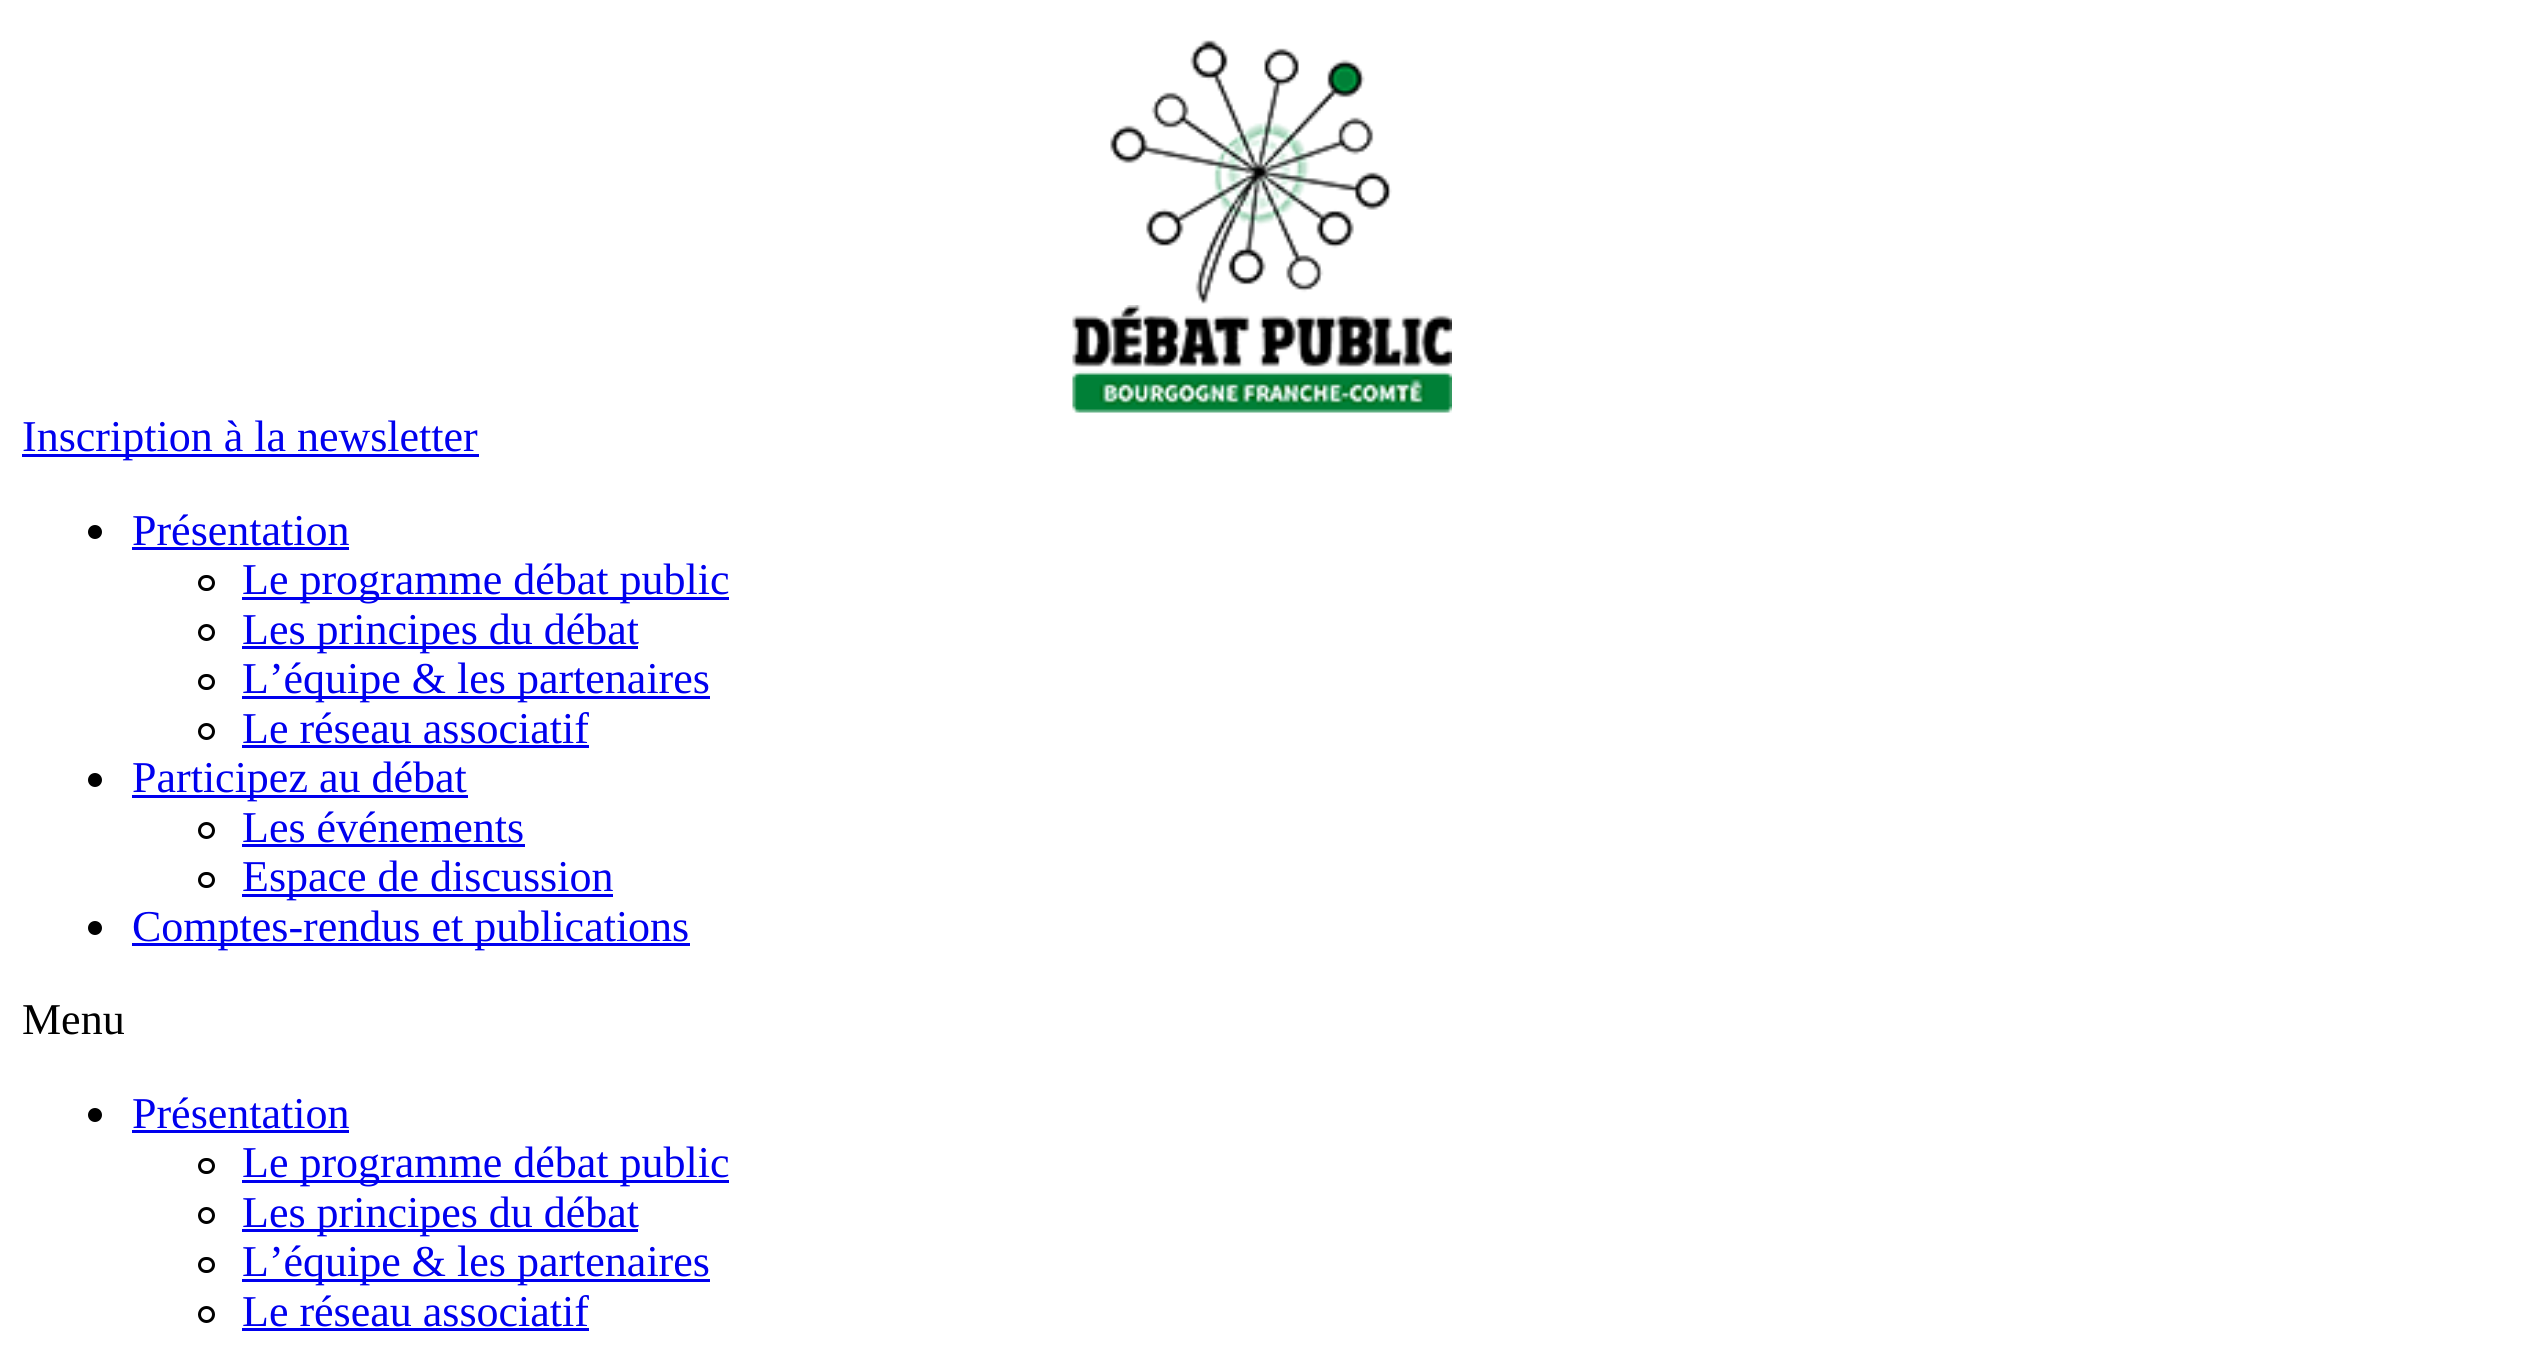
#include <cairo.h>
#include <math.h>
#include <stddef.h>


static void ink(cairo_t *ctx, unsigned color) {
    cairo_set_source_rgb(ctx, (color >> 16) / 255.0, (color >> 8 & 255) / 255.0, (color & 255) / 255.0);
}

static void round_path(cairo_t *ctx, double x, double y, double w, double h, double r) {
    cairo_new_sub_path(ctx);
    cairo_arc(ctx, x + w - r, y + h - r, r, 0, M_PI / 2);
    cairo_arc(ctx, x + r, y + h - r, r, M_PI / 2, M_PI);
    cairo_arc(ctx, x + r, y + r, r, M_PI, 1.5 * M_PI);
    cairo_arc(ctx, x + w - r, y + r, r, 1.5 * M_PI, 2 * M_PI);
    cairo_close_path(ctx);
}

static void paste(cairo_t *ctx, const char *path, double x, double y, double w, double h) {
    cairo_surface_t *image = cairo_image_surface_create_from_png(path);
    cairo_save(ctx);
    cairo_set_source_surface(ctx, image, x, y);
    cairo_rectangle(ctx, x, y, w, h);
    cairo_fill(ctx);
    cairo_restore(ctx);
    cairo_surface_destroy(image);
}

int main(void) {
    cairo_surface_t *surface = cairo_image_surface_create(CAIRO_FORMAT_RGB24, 2522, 1354);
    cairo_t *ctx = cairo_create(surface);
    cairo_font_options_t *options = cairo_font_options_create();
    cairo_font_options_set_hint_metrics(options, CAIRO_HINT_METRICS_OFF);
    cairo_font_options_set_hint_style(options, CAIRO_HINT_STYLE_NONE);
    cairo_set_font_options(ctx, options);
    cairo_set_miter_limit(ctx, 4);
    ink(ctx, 0xFFFFFF);
    cairo_paint(ctx);
    paste(ctx, "media/1.png", 1110, 40, 282, 264);
    paste(ctx, "media/2.png", 1072, 305, 380, 108);
    ink(ctx, 0x0000EE);
    cairo_rectangle(ctx, 22, 454, 457, 3);
    cairo_fill(ctx);
    cairo_select_font_face(ctx, "Liberation Serif", CAIRO_FONT_SLANT_NORMAL, CAIRO_FONT_WEIGHT_NORMAL);
    cairo_set_font_size(ctx, 44);
    cairo_move_to(ctx, 22, 451);
    cairo_show_text(ctx, "Inscription à la newsletter");
    ink(ctx, 0x000000);
    cairo_new_path(ctx);
    cairo_arc(ctx, 95, 532, 7, 0, 2 * M_PI);
    cairo_fill(ctx);
    ink(ctx, 0x0000EE);
    cairo_move_to(ctx, 132, 545);
    cairo_show_text(ctx, "Présentation");
    cairo_rectangle(ctx, 132, 547, 217, 3);
    cairo_fill(ctx);
    round_path(ctx, 199.5, 576.5, 14, 13, 6.5);
    ink(ctx, 0x000000);
    cairo_set_line_width(ctx, 3);
    cairo_stroke(ctx);
    ink(ctx, 0x0000EE);
    cairo_rectangle(ctx, 242, 597, 487, 3);
    cairo_fill(ctx);
    cairo_move_to(ctx, 242, 594);
    cairo_show_text(ctx, "Le programme débat public");
    cairo_new_path(ctx);
    cairo_arc(ctx, 206.5, 632.5, 7, 0, 2 * M_PI);
    ink(ctx, 0x000000);
    cairo_stroke(ctx);
    ink(ctx, 0x0000EE);
    cairo_rectangle(ctx, 242, 646, 396, 3);
    cairo_fill(ctx);
    cairo_move_to(ctx, 242, 644);
    cairo_show_text(ctx, "Les principes du débat");
    round_path(ctx, 199.5, 675.5, 14, 13, 6.5);
    ink(ctx, 0x000000);
    cairo_stroke(ctx);
    ink(ctx, 0x0000EE);
    cairo_rectangle(ctx, 242, 696, 468, 3);
    cairo_fill(ctx);
    cairo_move_to(ctx, 242, 693);
    cairo_show_text(ctx, "L’équipe & les partenaires");
    cairo_new_path(ctx);
    cairo_arc(ctx, 206.5, 731.5, 7, 0, 2 * M_PI);
    ink(ctx, 0x000000);
    cairo_stroke(ctx);
    ink(ctx, 0x0000EE);
    cairo_move_to(ctx, 242, 743);
    cairo_show_text(ctx, "Le réseau associatif");
    cairo_rectangle(ctx, 242, 745, 347, 3);
    cairo_fill(ctx);
    ink(ctx, 0x000000);
    cairo_arc(ctx, 95, 780, 7, 0, 2 * M_PI);
    cairo_fill(ctx);
    ink(ctx, 0x0000EE);
    cairo_rectangle(ctx, 132, 795, 336, 3);
    cairo_fill(ctx);
    cairo_move_to(ctx, 132, 792);
    cairo_show_text(ctx, "Participez au débat");
    cairo_new_path(ctx);
    cairo_arc(ctx, 206.5, 830.5, 7, 0, 2 * M_PI);
    ink(ctx, 0x000000);
    cairo_stroke(ctx);
    ink(ctx, 0x0000EE);
    cairo_move_to(ctx, 242, 842);
    cairo_show_text(ctx, "Les événements");
    cairo_rectangle(ctx, 242, 844, 283, 3);
    cairo_fill(ctx);
    round_path(ctx, 199.5, 873.5, 14, 13, 6.5);
    ink(ctx, 0x000000);
    cairo_stroke(ctx);
    ink(ctx, 0x0000EE);
    cairo_rectangle(ctx, 242, 894, 371, 3);
    cairo_fill(ctx);
    cairo_move_to(ctx, 242, 891);
    cairo_show_text(ctx, "Espace de discussion");
    ink(ctx, 0x000000);
    cairo_new_path(ctx);
    cairo_arc(ctx, 95, 928, 7, 0, 2 * M_PI);
    cairo_fill(ctx);
    ink(ctx, 0x0000EE);
    cairo_rectangle(ctx, 132, 943, 558, 3);
    cairo_fill(ctx);
    cairo_move_to(ctx, 132, 941);
    cairo_show_text(ctx, "Comptes-rendus et publications");
    ink(ctx, 0x000000);
    cairo_move_to(ctx, 22, 1034);
    cairo_show_text(ctx, "Menu");
    cairo_new_path(ctx);
    cairo_arc(ctx, 95, 1115, 7, 0, 2 * M_PI);
    cairo_fill(ctx);
    ink(ctx, 0x0000EE);
    cairo_move_to(ctx, 132, 1128);
    cairo_show_text(ctx, "Présentation");
    cairo_rectangle(ctx, 132, 1130, 217, 3);
    cairo_fill(ctx);
    round_path(ctx, 199.5, 1159.5, 14, 13, 6.5);
    ink(ctx, 0x000000);
    cairo_stroke(ctx);
    ink(ctx, 0x0000EE);
    cairo_rectangle(ctx, 242, 1180, 487, 3);
    cairo_fill(ctx);
    cairo_move_to(ctx, 242, 1177);
    cairo_show_text(ctx, "Le programme débat public");
    cairo_new_path(ctx);
    cairo_arc(ctx, 206.5, 1215.5, 7, 0, 2 * M_PI);
    ink(ctx, 0x000000);
    cairo_stroke(ctx);
    ink(ctx, 0x0000EE);
    cairo_rectangle(ctx, 242, 1229, 396, 3);
    cairo_fill(ctx);
    cairo_move_to(ctx, 242, 1227);
    cairo_show_text(ctx, "Les principes du débat");
    round_path(ctx, 199.5, 1258.5, 14, 13, 6.5);
    ink(ctx, 0x000000);
    cairo_stroke(ctx);
    ink(ctx, 0x0000EE);
    cairo_rectangle(ctx, 242, 1279, 468, 3);
    cairo_fill(ctx);
    cairo_move_to(ctx, 242, 1276);
    cairo_show_text(ctx, "L’équipe & les partenaires");
    cairo_new_path(ctx);
    cairo_arc(ctx, 206.5, 1314.5, 7, 0, 2 * M_PI);
    ink(ctx, 0x000000);
    cairo_stroke(ctx);
    ink(ctx, 0x0000EE);
    cairo_move_to(ctx, 242, 1326);
    cairo_show_text(ctx, "Le réseau associatif");
    cairo_rectangle(ctx, 242, 1328, 347, 3);
    cairo_fill(ctx);
    cairo_surface_write_to_png(surface, "image.png");
    cairo_font_options_destroy(options);
    cairo_destroy(ctx);
    cairo_surface_destroy(surface);
    return 0;
}
